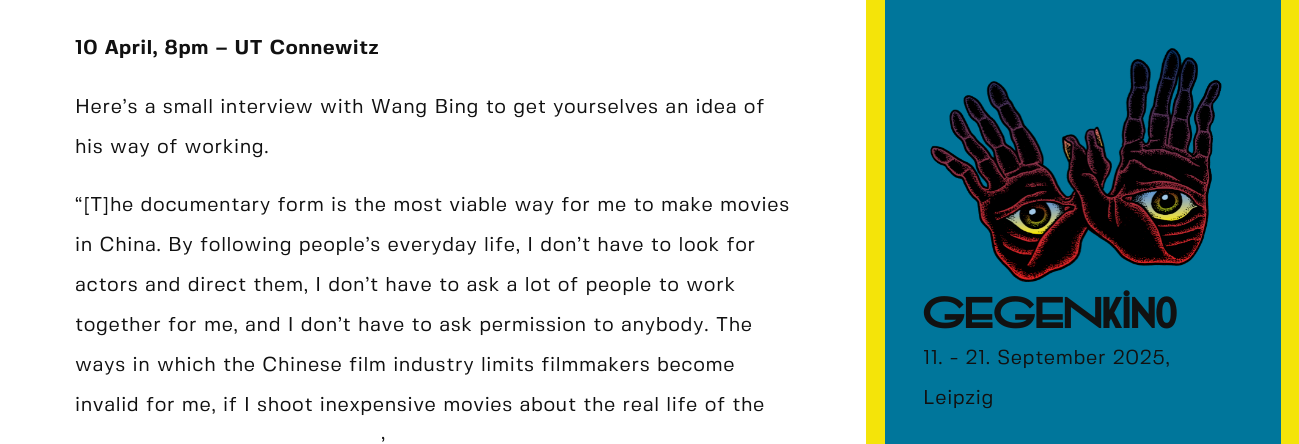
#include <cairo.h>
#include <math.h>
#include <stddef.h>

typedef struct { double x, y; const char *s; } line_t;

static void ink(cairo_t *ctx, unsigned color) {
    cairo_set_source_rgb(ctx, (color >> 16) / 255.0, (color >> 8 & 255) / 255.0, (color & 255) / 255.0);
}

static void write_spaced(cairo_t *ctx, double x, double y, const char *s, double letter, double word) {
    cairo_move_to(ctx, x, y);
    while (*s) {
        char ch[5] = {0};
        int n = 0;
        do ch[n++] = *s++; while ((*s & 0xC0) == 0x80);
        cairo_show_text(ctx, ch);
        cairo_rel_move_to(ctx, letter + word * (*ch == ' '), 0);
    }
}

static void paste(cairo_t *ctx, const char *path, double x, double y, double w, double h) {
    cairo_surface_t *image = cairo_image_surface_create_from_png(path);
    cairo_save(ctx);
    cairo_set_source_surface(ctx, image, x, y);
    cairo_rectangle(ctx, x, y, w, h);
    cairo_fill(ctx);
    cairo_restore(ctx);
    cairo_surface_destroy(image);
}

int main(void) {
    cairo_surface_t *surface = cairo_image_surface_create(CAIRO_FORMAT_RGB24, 1299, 444);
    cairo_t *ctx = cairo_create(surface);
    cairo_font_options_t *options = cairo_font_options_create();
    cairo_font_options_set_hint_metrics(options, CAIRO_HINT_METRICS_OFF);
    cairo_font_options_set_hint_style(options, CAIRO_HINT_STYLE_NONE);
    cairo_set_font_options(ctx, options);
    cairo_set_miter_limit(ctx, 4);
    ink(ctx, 0xF4E409);
    cairo_paint(ctx);
    ink(ctx, 0xFFFFFF);
    cairo_rectangle(ctx, 0, 0, 866, 444);
    cairo_fill(ctx);
    cairo_select_font_face(ctx, "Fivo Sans", CAIRO_FONT_SLANT_NORMAL, CAIRO_FONT_WEIGHT_BOLD);
    cairo_set_font_size(ctx, 20);
    ink(ctx, 0x111111);
    write_spaced(ctx, 75, 54, "10 April, 8pm – UT Connewitz", 0.62, 0);
    cairo_select_font_face(ctx, "Fivo Sans", CAIRO_FONT_SLANT_NORMAL, CAIRO_FONT_WEIGHT_NORMAL);
    {
        static const line_t items[] = {
            {75, 113, "Here’s a small interview with Wang Bing to get yourselves an idea of"},
            {75, 153, "his way of working."},
            {75, 211, "“[T]he documentary form is the most viable way for me to make movies"},
            {75, 251, "in China. By following people’s everyday life, I don’t have to look for"},
            {75, 291, "actors and direct them, I don’t have to ask a lot of people to work"},
            {75, 331, "together for me, and I don’t have to ask permission to anybody. The"},
            {75, 371, "ways in which the Chinese film industry limits filmmakers become"},
            {75, 411, "invalid for me, if I shoot inexpensive movies about the real life of the"},
            {381, 451, "’"},
        };
        for (size_t i = 0; i < sizeof items / sizeof *items; i++) {
            write_spaced(ctx, items[i].x, items[i].y, items[i].s, 0.62, 0);
        }
    }
    ink(ctx, 0x00769B);
    cairo_rectangle(ctx, 885, 0, 396, 444);
    cairo_fill(ctx);
    paste(ctx, "media/1.png", 930, 48, 292, 234);
    cairo_select_font_face(ctx, "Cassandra", CAIRO_FONT_SLANT_NORMAL, CAIRO_FONT_WEIGHT_BOLD);
    cairo_set_font_size(ctx, 50);
    ink(ctx, 0x111111);
    write_spaced(ctx, 923, 328, "GEGENkino", 0.62, 0);
    cairo_select_font_face(ctx, "Fivo Sans", CAIRO_FONT_SLANT_NORMAL, CAIRO_FONT_WEIGHT_NORMAL);
    cairo_set_font_size(ctx, 20);
    write_spaced(ctx, 923, 364, "11. - 21. September 2025,", 0.62, 0);
    write_spaced(ctx, 923, 404, "Leipzig", 0.62, 0);
    cairo_surface_write_to_png(surface, "image.png");
    cairo_font_options_destroy(options);
    cairo_destroy(ctx);
    cairo_surface_destroy(surface);
    return 0;
}
